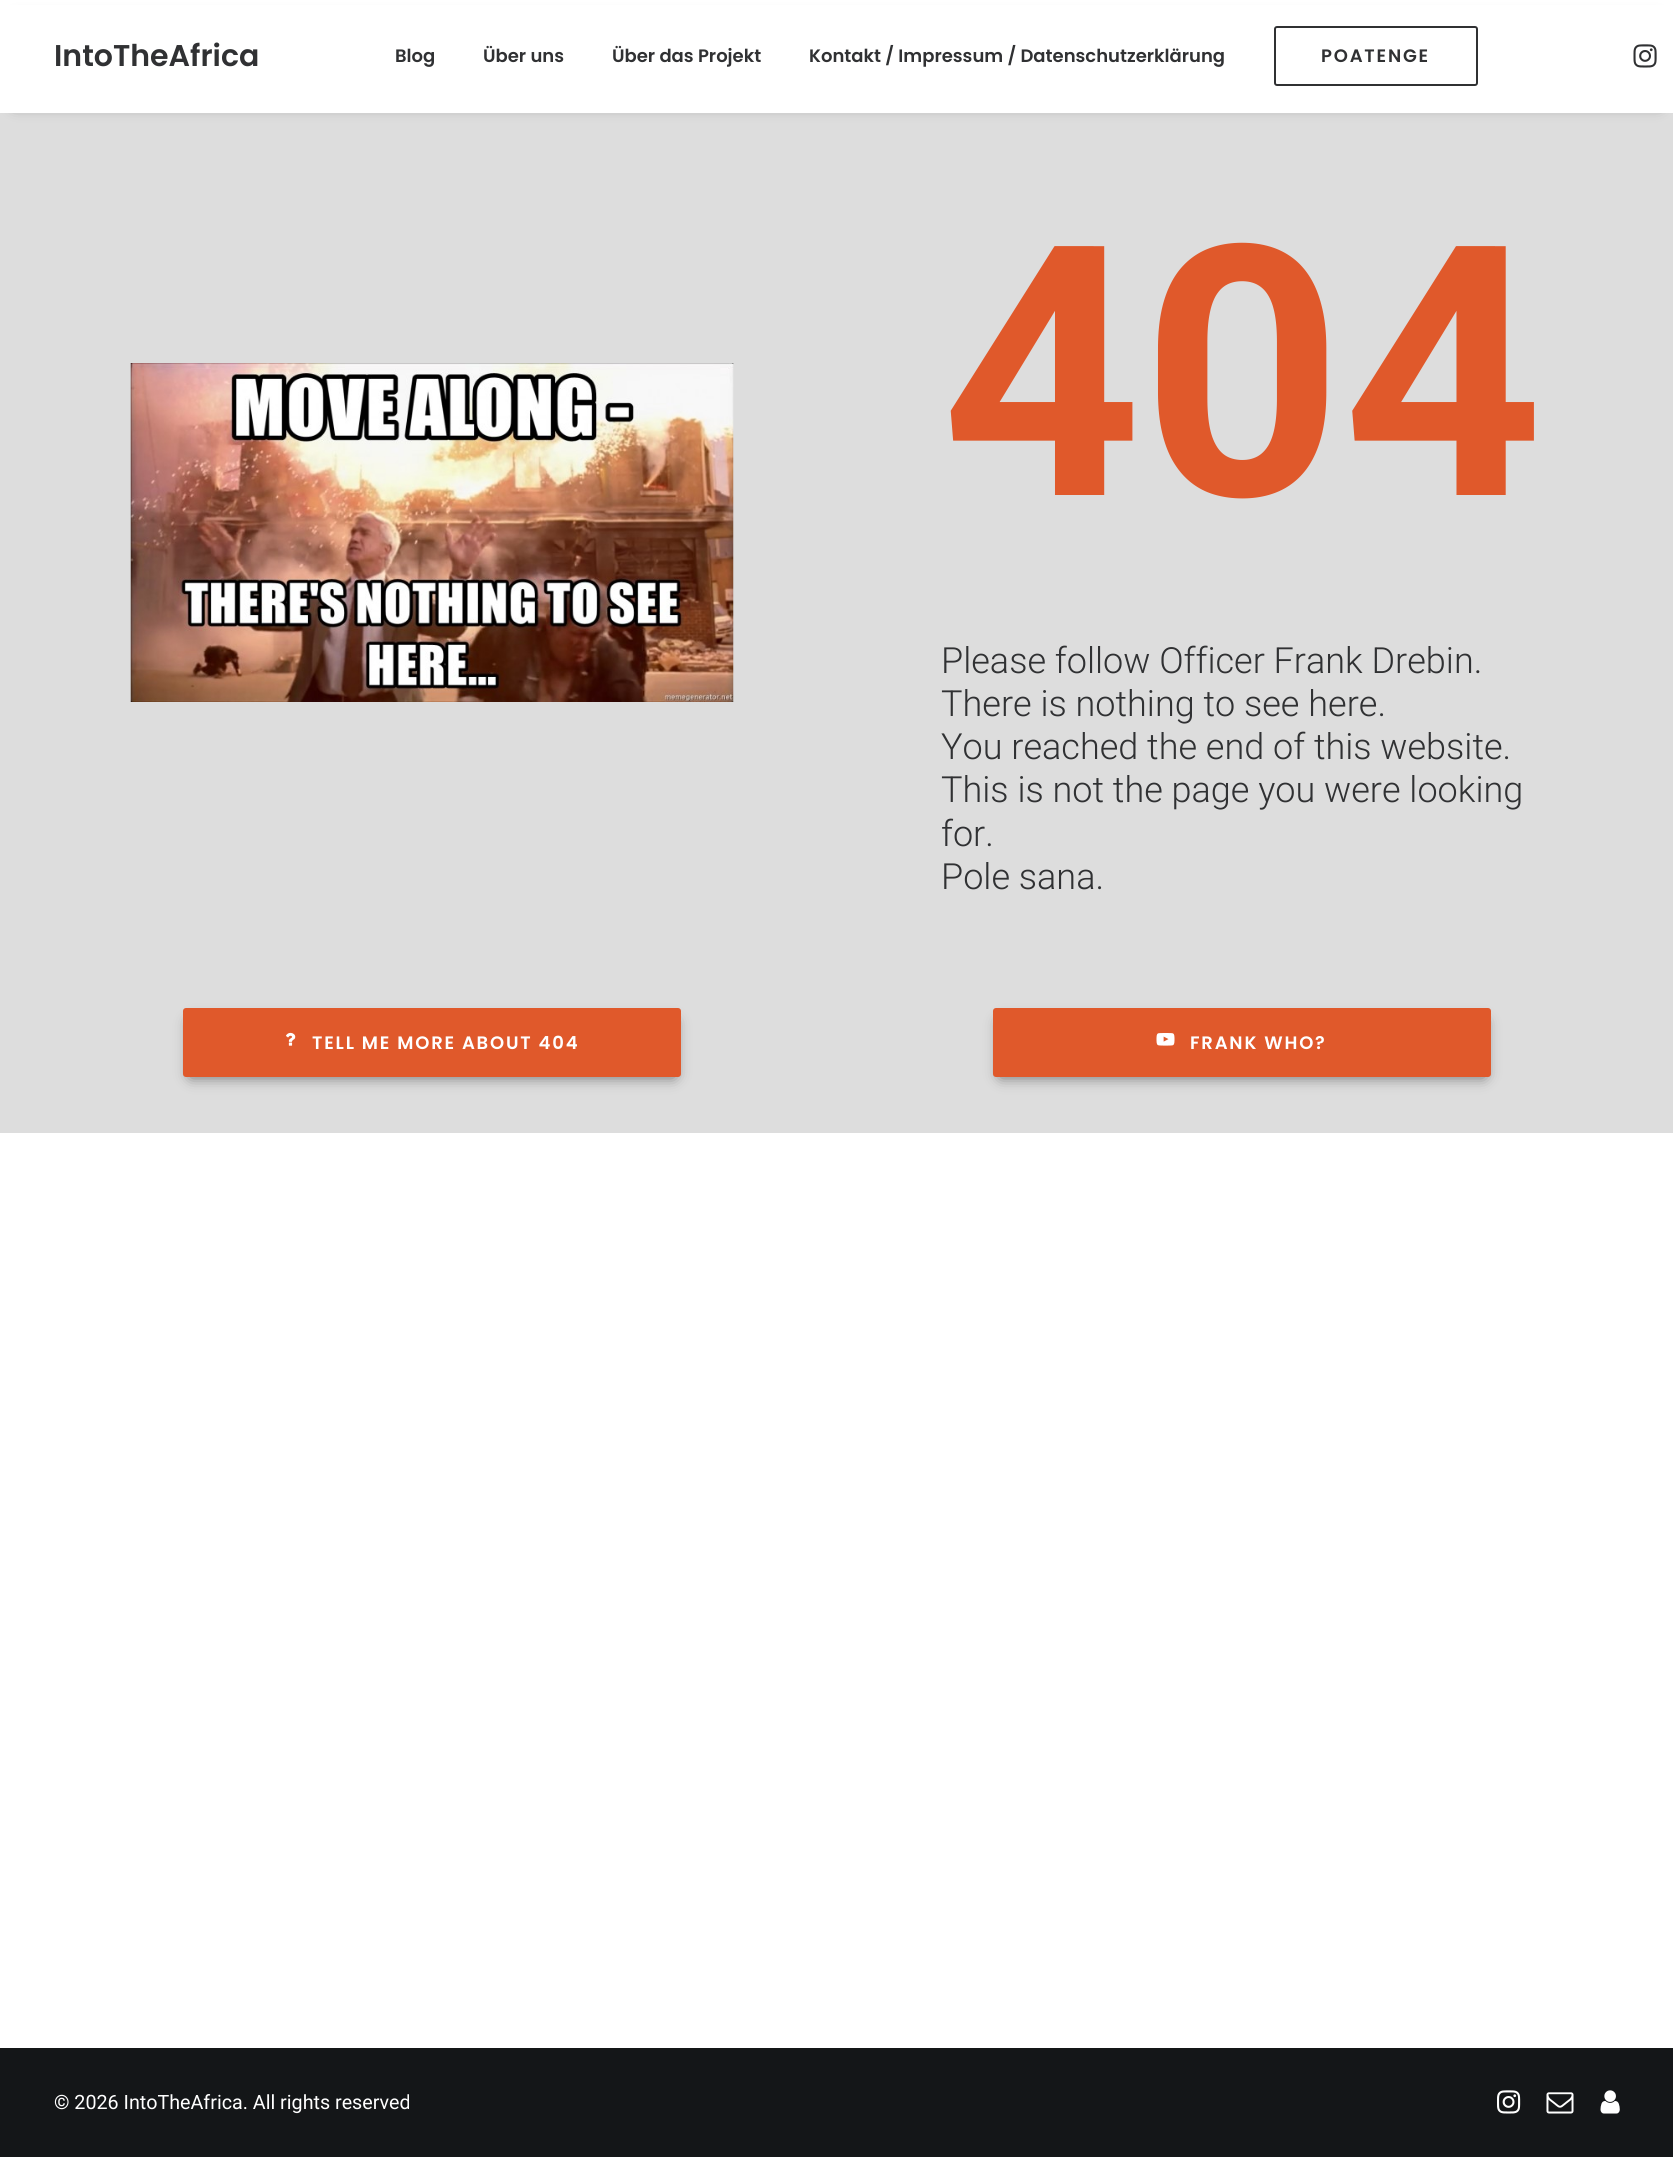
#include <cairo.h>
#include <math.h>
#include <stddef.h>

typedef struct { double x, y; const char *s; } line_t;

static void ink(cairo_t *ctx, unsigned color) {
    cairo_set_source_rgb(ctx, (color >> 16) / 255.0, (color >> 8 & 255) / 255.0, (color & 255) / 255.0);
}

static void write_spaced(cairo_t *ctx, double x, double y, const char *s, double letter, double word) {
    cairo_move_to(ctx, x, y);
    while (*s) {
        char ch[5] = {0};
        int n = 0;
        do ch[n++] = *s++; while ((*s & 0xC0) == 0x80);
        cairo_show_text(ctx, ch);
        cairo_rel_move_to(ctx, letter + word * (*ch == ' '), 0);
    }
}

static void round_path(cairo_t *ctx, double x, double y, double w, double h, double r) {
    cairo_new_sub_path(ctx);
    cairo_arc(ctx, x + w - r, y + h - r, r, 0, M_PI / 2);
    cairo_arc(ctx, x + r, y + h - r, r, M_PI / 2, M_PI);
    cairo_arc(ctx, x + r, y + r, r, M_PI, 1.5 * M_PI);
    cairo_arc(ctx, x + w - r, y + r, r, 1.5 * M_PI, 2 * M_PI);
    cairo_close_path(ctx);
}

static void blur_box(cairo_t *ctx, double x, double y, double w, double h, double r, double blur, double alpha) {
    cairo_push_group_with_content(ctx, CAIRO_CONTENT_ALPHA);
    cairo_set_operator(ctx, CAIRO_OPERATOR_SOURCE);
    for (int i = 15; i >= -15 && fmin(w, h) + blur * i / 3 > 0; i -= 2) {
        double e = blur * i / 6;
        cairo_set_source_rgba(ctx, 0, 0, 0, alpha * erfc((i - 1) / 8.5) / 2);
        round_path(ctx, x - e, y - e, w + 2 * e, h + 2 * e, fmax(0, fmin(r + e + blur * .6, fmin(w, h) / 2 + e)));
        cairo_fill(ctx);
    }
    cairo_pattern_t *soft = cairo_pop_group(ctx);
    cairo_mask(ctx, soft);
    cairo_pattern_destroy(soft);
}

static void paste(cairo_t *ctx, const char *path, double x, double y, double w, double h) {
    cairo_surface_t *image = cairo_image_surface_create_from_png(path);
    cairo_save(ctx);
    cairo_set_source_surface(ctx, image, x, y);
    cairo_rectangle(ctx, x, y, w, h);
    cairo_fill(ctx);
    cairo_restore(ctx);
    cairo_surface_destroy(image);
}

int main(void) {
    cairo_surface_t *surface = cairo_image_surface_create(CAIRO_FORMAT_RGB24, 1673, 2157);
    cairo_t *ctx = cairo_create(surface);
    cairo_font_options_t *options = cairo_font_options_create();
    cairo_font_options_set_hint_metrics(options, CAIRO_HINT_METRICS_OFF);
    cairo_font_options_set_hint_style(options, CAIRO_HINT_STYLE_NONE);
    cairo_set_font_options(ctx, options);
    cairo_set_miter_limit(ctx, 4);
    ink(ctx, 0xFFFFFF);
    cairo_paint(ctx);
    ink(ctx, 0xDDDDDD);
    cairo_rectangle(ctx, 0, 113, 1673, 1020);
    cairo_fill(ctx);
    ink(ctx, 0x000000);
    blur_box(ctx, 15, 21, 1644, 83, 0, 7.5, 0.6);
    ink(ctx, 0xFFFFFF);
    cairo_rectangle(ctx, 0, 5, 1673, 108);
    cairo_fill(ctx);
    cairo_select_font_face(ctx, "Poppins SemiBold", CAIRO_FONT_SLANT_NORMAL, CAIRO_FONT_WEIGHT_NORMAL);
    cairo_set_font_size(ctx, 30);
    ink(ctx, 0x303133);
    cairo_move_to(ctx, 54, 66);
    cairo_show_text(ctx, "IntoTheAfrica");
    cairo_set_font_size(ctx, 18);
    {
        static const line_t items[] = {
            {395, 62, "Blog"},
            {483, 62, "Über uns"},
            {612, 62, "Über das Projekt"},
            {809, 62, "Kontakt / Impressum / Datenschutzerklärung"},
        };
        for (size_t i = 0; i < sizeof items / sizeof *items; i++) {
            cairo_move_to(ctx, items[i].x, items[i].y);
            cairo_show_text(ctx, items[i].s);
        }
    }
    round_path(ctx, 1275, 27, 202, 58, 2);
    cairo_stroke(ctx);
    write_spaced(ctx, 1321, 62, "POATENGE", 1.8, 0);
    paste(ctx, "media/1.png", 1633, 44, 24, 24);
    paste(ctx, "media/2.png", 130, 363, 604, 339);
    cairo_select_font_face(ctx, "Roboto", CAIRO_FONT_SLANT_NORMAL, CAIRO_FONT_WEIGHT_BOLD);
    cairo_set_font_size(ctx, 350);
    ink(ctx, 0xE0592B);
    cairo_move_to(ctx, 941, 495);
    cairo_show_text(ctx, "404");
    cairo_select_font_face(ctx, "Roboto Light", CAIRO_FONT_SLANT_NORMAL, CAIRO_FONT_WEIGHT_NORMAL);
    cairo_set_font_size(ctx, 36);
    ink(ctx, 0x303133);
    {
        static const line_t items[] = {
            {941, 673, "Please follow Officer Frank Drebin."},
            {941, 716, "There is nothing to see here."},
            {941, 759, "You reached the end of this website."},
            {941, 802, "This is not the page you were looking"},
            {941, 846, "for."},
            {941, 889, "Pole sana."},
        };
        for (size_t i = 0; i < sizeof items / sizeof *items; i++) {
            cairo_move_to(ctx, items[i].x, items[i].y);
            cairo_show_text(ctx, items[i].s);
        }
    }
    ink(ctx, 0x000000);
    blur_box(ctx, 191, 1022, 483, 54, 0, 7.5, 0.6);
    ink(ctx, 0xE0592B);
    round_path(ctx, 184, 1009, 496, 67, 2);
    cairo_fill_preserve(ctx);
    cairo_stroke(ctx);
    paste(ctx, "media/3.png", 286, 1032, 10, 14);
    cairo_select_font_face(ctx, "Poppins SemiBold", CAIRO_FONT_SLANT_NORMAL, CAIRO_FONT_WEIGHT_NORMAL);
    cairo_set_font_size(ctx, 18);
    ink(ctx, 0xFFFFFF);
    write_spaced(ctx, 312, 1049, "TELL ME MORE ABOUT 404", 1.8, 0);
    ink(ctx, 0x000000);
    blur_box(ctx, 1001, 1022, 483, 54, 0, 7.5, 0.6);
    ink(ctx, 0xE0592B);
    round_path(ctx, 994, 1009, 496, 67, 2);
    cairo_fill_preserve(ctx);
    cairo_stroke(ctx);
    paste(ctx, "media/4.png", 1156, 1033, 19, 13);
    ink(ctx, 0xFFFFFF);
    write_spaced(ctx, 1190, 1049, "FRANK WHO?", 1.8, 0);
    ink(ctx, 0x141618);
    cairo_rectangle(ctx, 0, 2048, 1673, 109);
    cairo_fill(ctx);
    cairo_select_font_face(ctx, "Roboto", CAIRO_FONT_SLANT_NORMAL, CAIRO_FONT_WEIGHT_NORMAL);
    cairo_set_font_size(ctx, 19.7);
    ink(ctx, 0xFFFFFF);
    cairo_move_to(ctx, 54, 2109);
    cairo_show_text(ctx, "© 2026 IntoTheAfrica. All rights reserved");
    paste(ctx, "media/5.png", 1497, 2090, 24, 24);
    paste(ctx, "media/6.png", 1546, 2092, 28, 22);
    paste(ctx, "media/7.png", 1600, 2090, 20, 24);
    cairo_surface_write_to_png(surface, "image.png");
    cairo_font_options_destroy(options);
    cairo_destroy(ctx);
    cairo_surface_destroy(surface);
    return 0;
}
